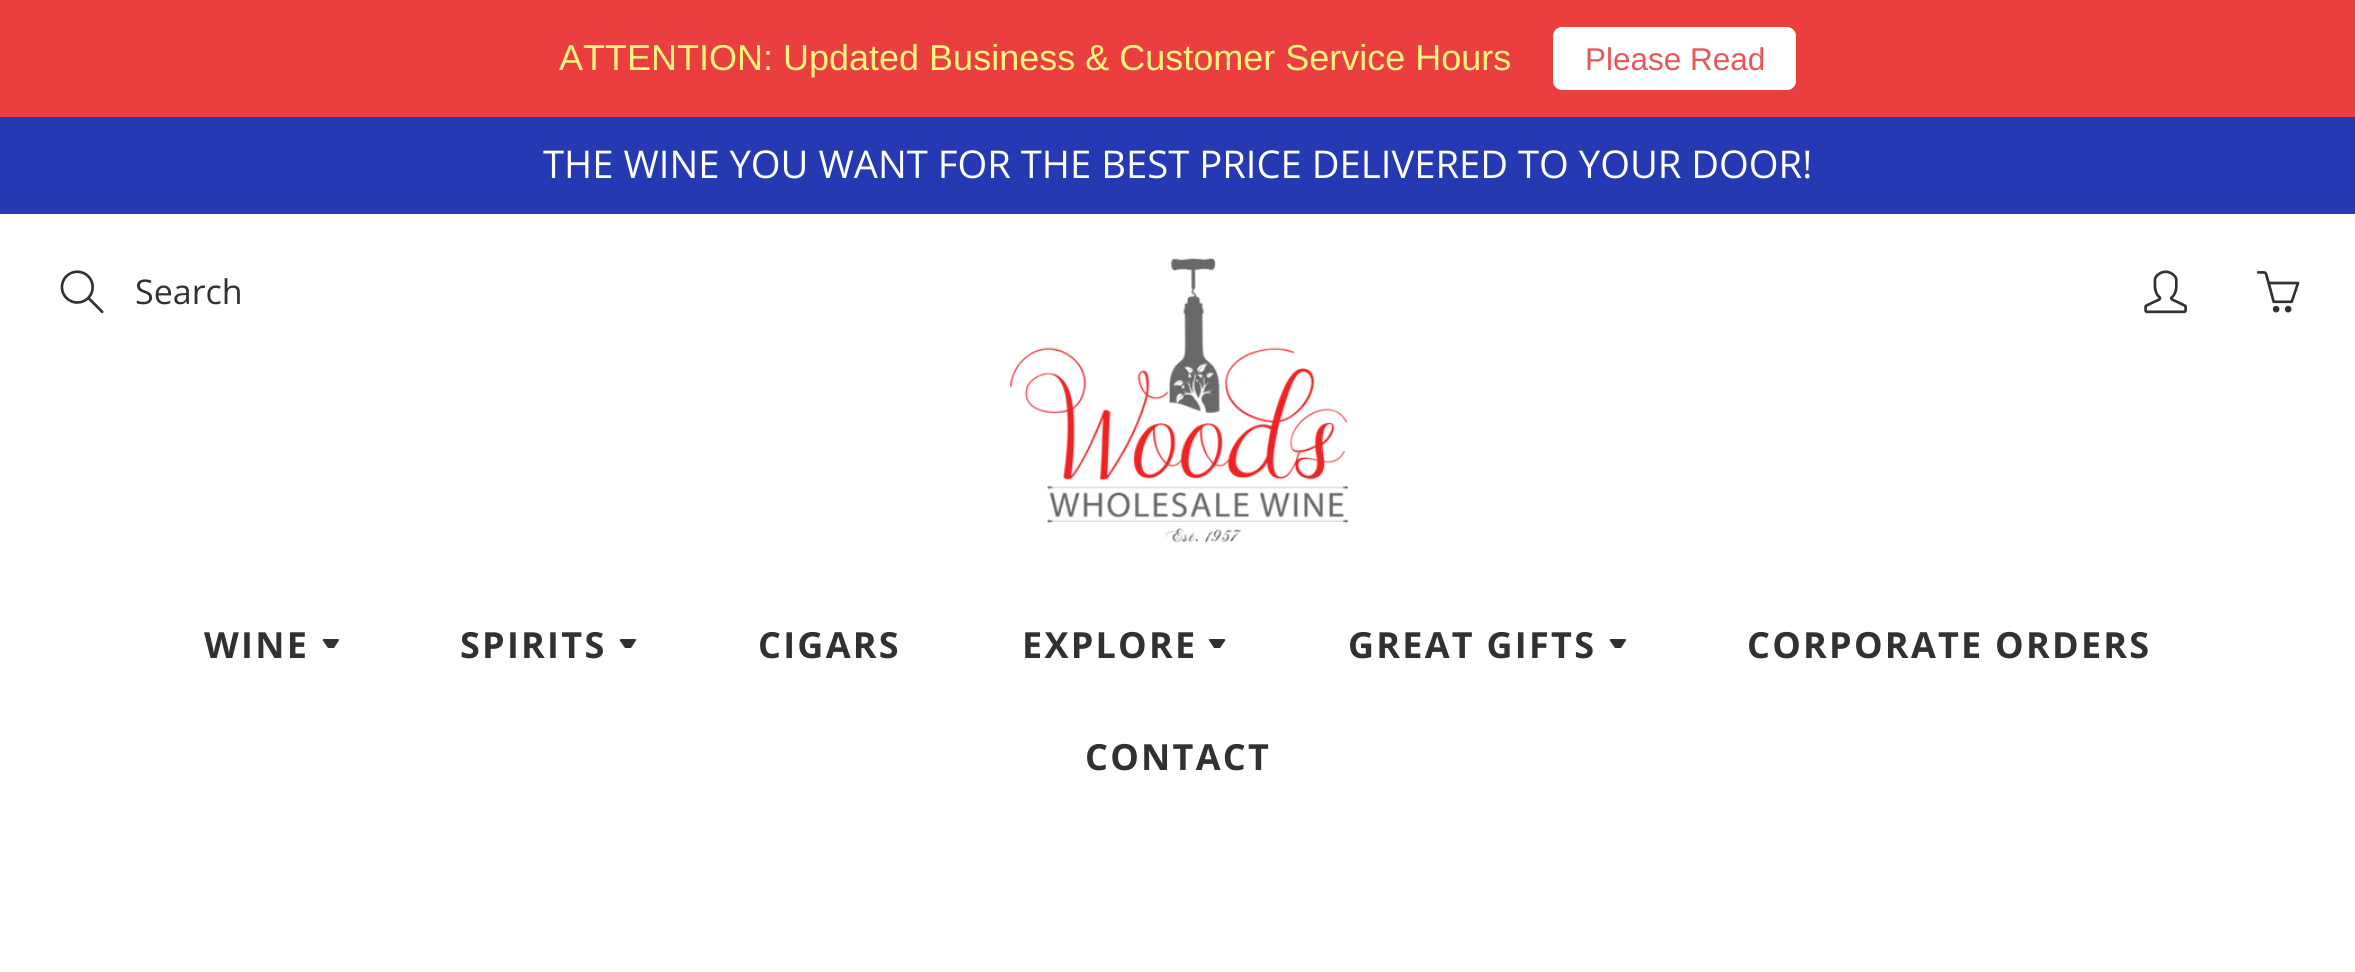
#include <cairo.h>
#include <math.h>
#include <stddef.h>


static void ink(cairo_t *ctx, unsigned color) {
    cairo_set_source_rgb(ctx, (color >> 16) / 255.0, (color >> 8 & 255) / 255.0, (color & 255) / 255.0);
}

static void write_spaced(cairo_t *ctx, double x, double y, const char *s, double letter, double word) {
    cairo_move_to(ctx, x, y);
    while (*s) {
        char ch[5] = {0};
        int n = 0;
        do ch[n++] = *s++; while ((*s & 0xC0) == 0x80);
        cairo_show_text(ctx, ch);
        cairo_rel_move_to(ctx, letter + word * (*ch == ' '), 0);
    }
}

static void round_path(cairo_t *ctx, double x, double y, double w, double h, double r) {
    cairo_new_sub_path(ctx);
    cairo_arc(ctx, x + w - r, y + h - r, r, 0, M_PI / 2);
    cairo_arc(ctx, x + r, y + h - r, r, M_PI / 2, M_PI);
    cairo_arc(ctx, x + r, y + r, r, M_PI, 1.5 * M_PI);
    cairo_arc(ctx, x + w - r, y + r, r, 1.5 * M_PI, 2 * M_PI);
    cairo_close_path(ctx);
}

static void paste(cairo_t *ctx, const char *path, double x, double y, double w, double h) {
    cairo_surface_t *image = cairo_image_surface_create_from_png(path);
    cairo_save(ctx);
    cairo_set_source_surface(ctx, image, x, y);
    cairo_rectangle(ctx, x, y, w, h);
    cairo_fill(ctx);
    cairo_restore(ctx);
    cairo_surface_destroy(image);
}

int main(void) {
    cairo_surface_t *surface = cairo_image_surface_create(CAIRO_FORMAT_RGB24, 2355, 972);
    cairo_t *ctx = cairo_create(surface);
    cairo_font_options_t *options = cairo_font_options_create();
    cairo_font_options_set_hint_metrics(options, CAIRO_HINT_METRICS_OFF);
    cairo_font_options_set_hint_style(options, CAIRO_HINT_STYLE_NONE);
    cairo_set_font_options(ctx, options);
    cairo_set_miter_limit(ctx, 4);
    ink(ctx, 0xFFFFFF);
    cairo_paint(ctx);
    ink(ctx, 0xEB3E3E);
    cairo_rectangle(ctx, 0, 0, 2355, 117);
    cairo_fill(ctx);
    cairo_select_font_face(ctx, "Liberation Sans", CAIRO_FONT_SLANT_NORMAL, CAIRO_FONT_WEIGHT_NORMAL);
    cairo_set_font_size(ctx, 36);
    ink(ctx, 0xFFF681);
    cairo_move_to(ctx, 559, 70);
    cairo_show_text(ctx, "ATTENTION: Updated Business & Customer Service Hours");
    ink(ctx, 0xFFFFFF);
    round_path(ctx, 1553, 27, 243, 63, 9);
    cairo_fill(ctx);
    cairo_set_font_size(ctx, 31.5);
    ink(ctx, 0xE85756);
    cairo_move_to(ctx, 1585, 70);
    cairo_show_text(ctx, "Please Read");
    ink(ctx, 0x2439B2);
    cairo_rectangle(ctx, 0, 117, 2355, 97);
    cairo_fill(ctx);
    cairo_select_font_face(ctx, "Open Sans", CAIRO_FONT_SLANT_NORMAL, CAIRO_FONT_WEIGHT_NORMAL);
    cairo_set_font_size(ctx, 38.25);
    ink(ctx, 0xFFFFFF);
    cairo_move_to(ctx, 543, 178);
    cairo_show_text(ctx, "THE WINE YOU WANT FOR THE BEST PRICE DELIVERED TO YOUR DOOR!");
    paste(ctx, "media/1.png", 60, 270, 44, 44);
    cairo_set_font_size(ctx, 34);
    ink(ctx, 0x313131);
    cairo_move_to(ctx, 135, 304);
    cairo_show_text(ctx, "Search");
    paste(ctx, "media/2.png", 1010, 258, 338, 285);
    paste(ctx, "media/3.png", 2144, 270, 43, 44);
    paste(ctx, "media/4.png", 2256, 271, 44, 42);
    cairo_select_font_face(ctx, "Open Sans", CAIRO_FONT_SLANT_NORMAL, CAIRO_FONT_WEIGHT_BOLD);
    cairo_set_font_size(ctx, 36);
    write_spaced(ctx, 204, 658, "WINE", 2.25, 0);
    cairo_new_path(ctx);
    cairo_move_to(ctx, 324, 639);
    cairo_line_to(ctx, 337.5, 639);
    cairo_curve_to(ctx, 338, 639, 338.5, 639.5, 339.5, 639.5);
    cairo_line_to(ctx, 334, 648);
    cairo_line_to(ctx, 328, 648);
    cairo_line_to(ctx, 322.5, 640);
    cairo_curve_to(ctx, 322.5, 639.5, 323.5, 639, 324, 639);
    cairo_close_path(ctx);
    cairo_fill(ctx);
    write_spaced(ctx, 460, 658, "SPIRITS", 2.25, 0);
    cairo_new_path(ctx);
    cairo_move_to(ctx, 621, 639);
    cairo_line_to(ctx, 634.5, 639);
    cairo_curve_to(ctx, 635, 639, 635.5, 639.5, 636.5, 639.5);
    cairo_line_to(ctx, 631, 648);
    cairo_line_to(ctx, 625, 648);
    cairo_line_to(ctx, 619.5, 640);
    cairo_curve_to(ctx, 619.5, 639.5, 620.5, 639, 621, 639);
    cairo_close_path(ctx);
    cairo_fill(ctx);
    write_spaced(ctx, 758, 658, "CIGARS", 2.25, 0);
    write_spaced(ctx, 1022, 658, "EXPLORE", 2.25, 0);
    cairo_new_path(ctx);
    cairo_move_to(ctx, 1210.5, 639);
    cairo_line_to(ctx, 1208.5, 639.5);
    cairo_line_to(ctx, 1214, 648);
    cairo_line_to(ctx, 1220, 648);
    cairo_line_to(ctx, 1225.5, 640);
    cairo_curve_to(ctx, 1225.5, 639.5, 1224.5, 639, 1224, 639);
    cairo_close_path(ctx);
    cairo_fill(ctx);
    write_spaced(ctx, 1348, 658, "GREAT GIFTS", 2.25, 0);
    cairo_new_path(ctx);
    cairo_move_to(ctx, 1611, 639);
    cairo_line_to(ctx, 1624.5, 639);
    cairo_curve_to(ctx, 1625, 639, 1625.5, 639.5, 1626.5, 639.5);
    cairo_line_to(ctx, 1621, 648);
    cairo_line_to(ctx, 1615, 648);
    cairo_line_to(ctx, 1609.5, 640);
    cairo_curve_to(ctx, 1609.5, 639.5, 1610.5, 639, 1611, 639);
    cairo_close_path(ctx);
    cairo_fill(ctx);
    write_spaced(ctx, 1747, 658, "CORPORATE ORDERS", 2.25, 0);
    write_spaced(ctx, 1085, 770, "CONTACT", 2.25, 0);
    cairo_surface_write_to_png(surface, "image.png");
    cairo_font_options_destroy(options);
    cairo_destroy(ctx);
    cairo_surface_destroy(surface);
    return 0;
}
